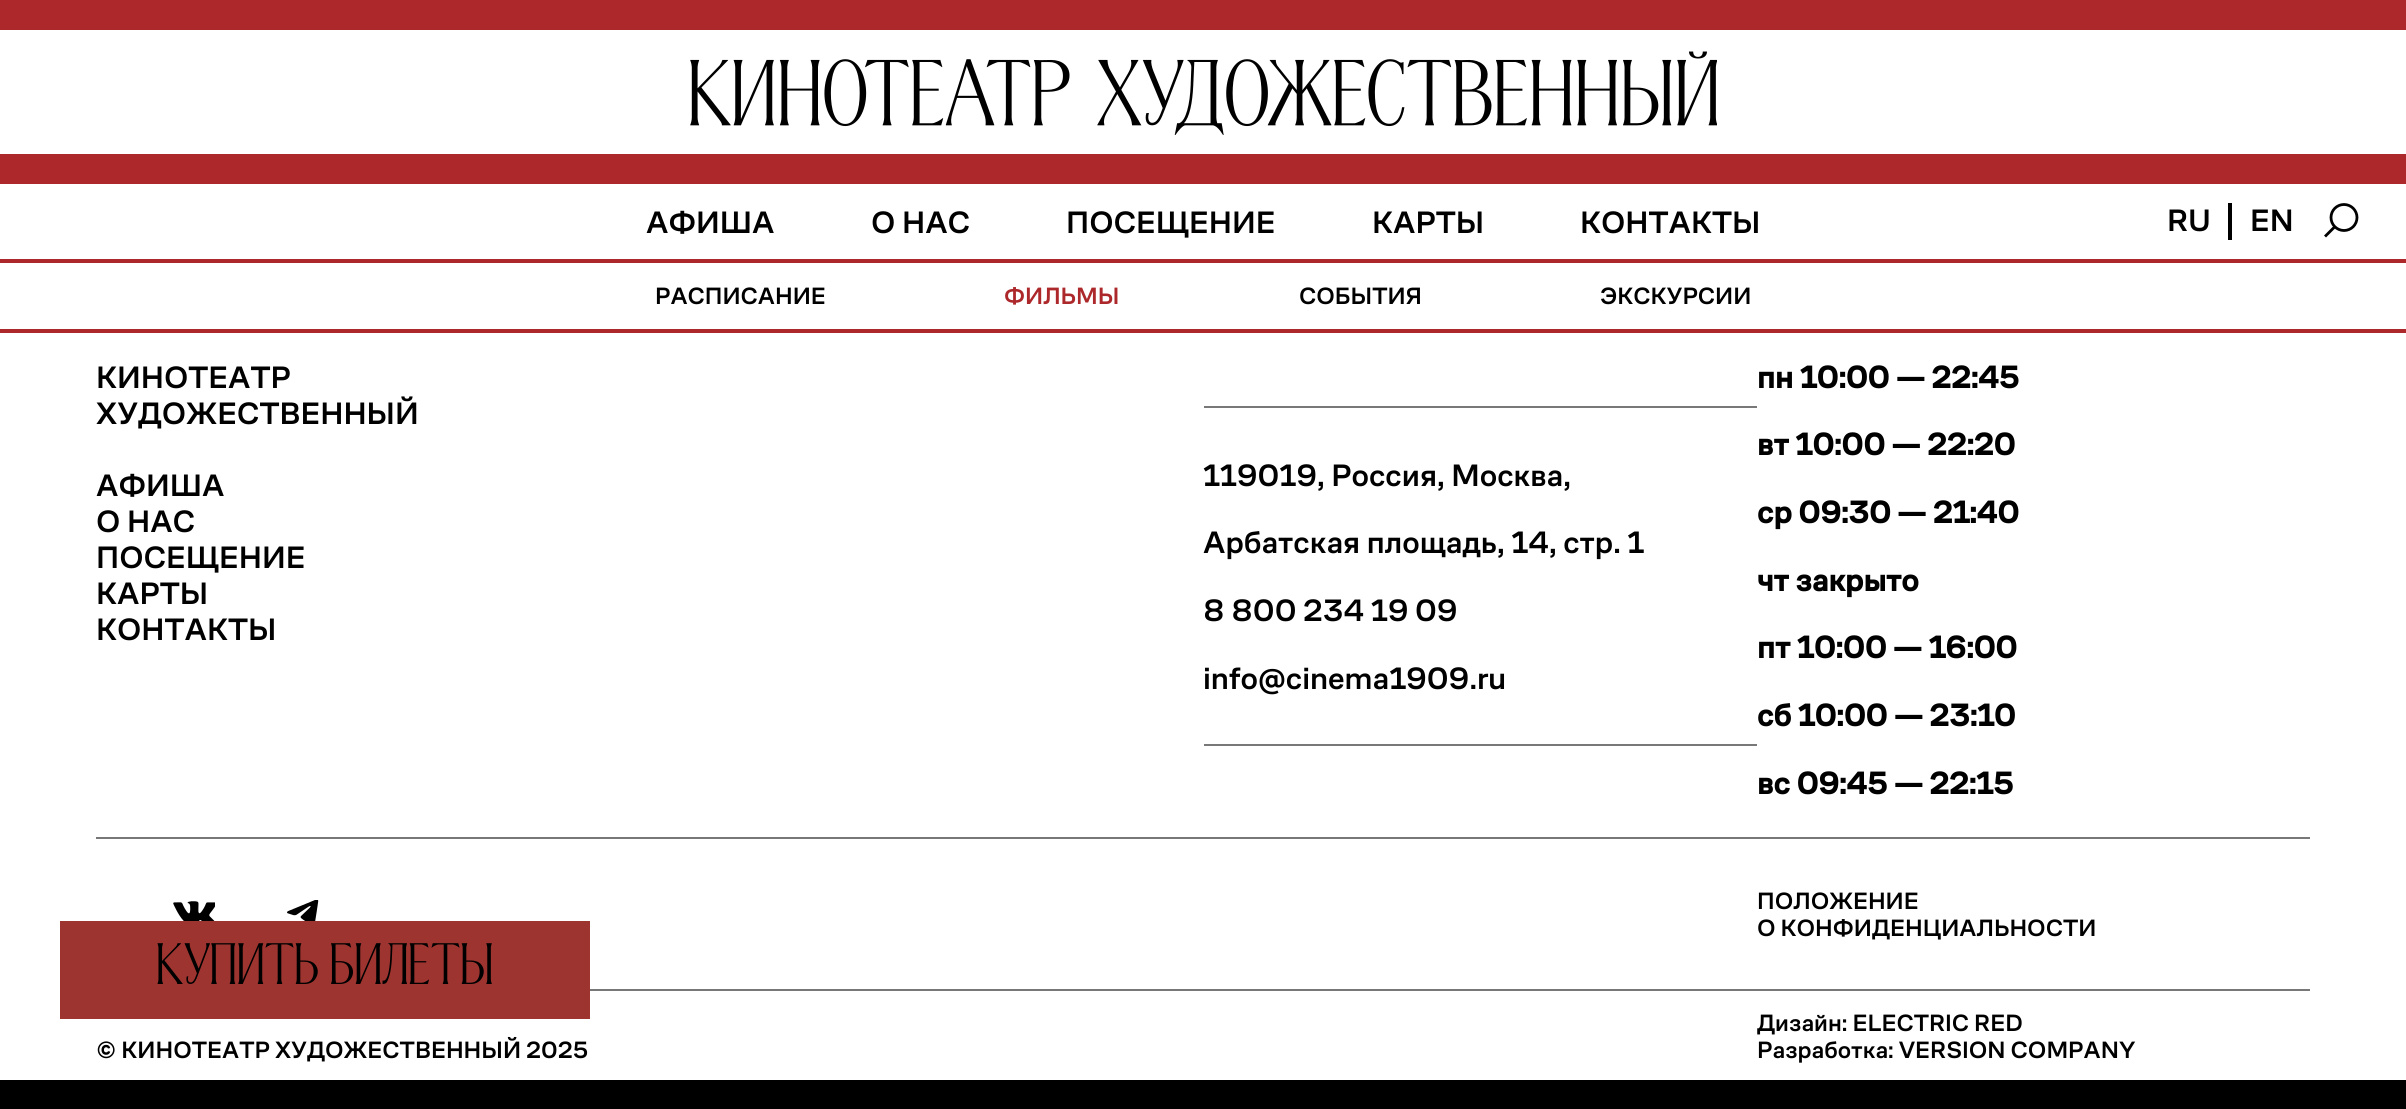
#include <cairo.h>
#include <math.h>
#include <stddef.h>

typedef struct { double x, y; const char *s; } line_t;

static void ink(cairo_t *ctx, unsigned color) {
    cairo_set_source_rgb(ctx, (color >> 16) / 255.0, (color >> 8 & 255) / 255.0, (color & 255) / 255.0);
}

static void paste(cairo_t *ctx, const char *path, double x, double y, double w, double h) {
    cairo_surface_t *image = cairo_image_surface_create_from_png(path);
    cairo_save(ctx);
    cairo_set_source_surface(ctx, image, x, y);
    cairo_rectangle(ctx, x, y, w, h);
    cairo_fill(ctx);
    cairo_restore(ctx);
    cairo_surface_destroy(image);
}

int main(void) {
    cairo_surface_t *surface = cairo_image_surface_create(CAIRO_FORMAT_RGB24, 2406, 1109);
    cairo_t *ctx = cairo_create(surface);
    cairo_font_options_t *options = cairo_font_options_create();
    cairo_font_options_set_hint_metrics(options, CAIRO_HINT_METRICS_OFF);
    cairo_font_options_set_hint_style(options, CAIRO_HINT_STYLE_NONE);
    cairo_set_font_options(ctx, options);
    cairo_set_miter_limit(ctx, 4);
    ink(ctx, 0xFFFFFF);
    cairo_paint(ctx);
    ink(ctx, 0xAC282A);
    cairo_rectangle(ctx, 0, 0, 2406, 30);
    cairo_fill(ctx);
    cairo_rectangle(ctx, 0, 154, 2406, 30);
    cairo_fill(ctx);
    paste(ctx, "media/1.png", 690, 51, 1027, 84);
    cairo_rectangle(ctx, 0, 259, 2406, 4);
    cairo_fill(ctx);
    cairo_select_font_face(ctx, "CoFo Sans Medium", CAIRO_FONT_SLANT_NORMAL, CAIRO_FONT_WEIGHT_NORMAL);
    cairo_set_font_size(ctx, 31.6);
    ink(ctx, 0x000000);
    cairo_move_to(ctx, 646, 233);
    cairo_show_text(ctx, "АФИША");
    ink(ctx, 0xAC282A);
    cairo_rectangle(ctx, 0, 329, 2406, 4);
    cairo_fill(ctx);
    cairo_set_font_size(ctx, 24.1);
    ink(ctx, 0x000000);
    cairo_move_to(ctx, 655, 304);
    cairo_show_text(ctx, "РАСПИСАНИЕ");
    ink(ctx, 0xAC282A);
    cairo_move_to(ctx, 1004, 304);
    cairo_show_text(ctx, "ФИЛЬМЫ");
    ink(ctx, 0x000000);
    cairo_move_to(ctx, 1299, 304);
    cairo_show_text(ctx, "СОБЫТИЯ");
    cairo_move_to(ctx, 1600, 304);
    cairo_show_text(ctx, "ЭКСКУРСИИ");
    cairo_set_font_size(ctx, 31.6);
    cairo_move_to(ctx, 2167, 231);
    cairo_show_text(ctx, "RU");
    cairo_rectangle(ctx, 2228, 203, 4, 37);
    cairo_fill(ctx);
    cairo_move_to(ctx, 2250, 231);
    cairo_show_text(ctx, "EN");
    cairo_new_path(ctx);
    cairo_arc(ctx, 2344, 217.5, 13, 0, 2 * M_PI);
    cairo_set_line_width(ctx, 2.8);
    cairo_stroke(ctx);
    cairo_new_path(ctx);
    cairo_move_to(ctx, 2334.5, 227);
    cairo_line_to(ctx, 2325, 236.5);
    cairo_stroke(ctx);
    {
        static const line_t items[] = {
            {871, 233, "О НАС"},
            {1066, 233, "ПОСЕЩЕНИЕ"},
            {1372, 233, "КАРТЫ"},
            {1580, 233, "КОНТАКТЫ"},
            {96, 388, "КИНОТЕАТР"},
            {96, 424, "ХУДОЖЕСТВЕННЫЙ"},
            {96, 496, "АФИША"},
            {96, 532, "О НАС"},
            {96, 568, "ПОСЕЩЕНИЕ"},
            {96, 604, "КАРТЫ"},
            {96, 640, "КОНТАКТЫ"},
        };
        for (size_t i = 0; i < sizeof items / sizeof *items; i++) {
            cairo_move_to(ctx, items[i].x, items[i].y);
            cairo_show_text(ctx, items[i].s);
        }
    }
    ink(ctx, 0x787878);
    cairo_rectangle(ctx, 1204, 406, 553, 2);
    cairo_fill(ctx);
    ink(ctx, 0x000000);
    {
        static const line_t items[] = {
            {1203, 486, "119019, Россия, Москва,"},
            {1203, 553, "Арбатская площадь, 14, стр. 1"},
            {1203, 621, "8 800 234 19 09"},
            {1203, 689, "info@cinema1909.ru"},
        };
        for (size_t i = 0; i < sizeof items / sizeof *items; i++) {
            cairo_move_to(ctx, items[i].x, items[i].y);
            cairo_show_text(ctx, items[i].s);
        }
    }
    ink(ctx, 0x787878);
    cairo_rectangle(ctx, 1204, 744, 553, 2);
    cairo_fill(ctx);
    cairo_select_font_face(ctx, "CoFo Sans", CAIRO_FONT_SLANT_NORMAL, CAIRO_FONT_WEIGHT_BOLD);
    ink(ctx, 0x000000);
    {
        static const line_t items[] = {
            {1757, 388, "пн 10:00 — 22:45"},
            {1757, 455, "вт 10:00 — 22:20"},
            {1757, 523, "ср 09:30 — 21:40"},
            {1757, 591, "чт закрыто"},
            {1757, 658, "пт 10:00 — 16:00"},
            {1757, 726, "сб 10:00 — 23:10"},
            {1757, 794, "вс 09:45 — 22:15"},
        };
        for (size_t i = 0; i < sizeof items / sizeof *items; i++) {
            cairo_move_to(ctx, items[i].x, items[i].y);
            cairo_show_text(ctx, items[i].s);
        }
    }
    ink(ctx, 0x787878);
    cairo_rectangle(ctx, 96, 837, 2214, 2);
    cairo_fill(ctx);
    paste(ctx, "media/2.png", 173, 901, 42, 20);
    paste(ctx, "media/3.png", 287, 900, 32, 21);
    cairo_select_font_face(ctx, "CoFo Sans Medium", CAIRO_FONT_SLANT_NORMAL, CAIRO_FONT_WEIGHT_NORMAL);
    cairo_set_font_size(ctx, 24.1);
    ink(ctx, 0x000000);
    cairo_move_to(ctx, 1757, 909);
    cairo_show_text(ctx, "ПОЛОЖЕНИЕ");
    cairo_move_to(ctx, 1757, 936);
    cairo_show_text(ctx, "О КОНФИДЕНЦИАЛЬНОСТИ");
    ink(ctx, 0x787878);
    cairo_rectangle(ctx, 590, 989, 1720, 2);
    cairo_fill(ctx);
    ink(ctx, 0x000000);
    {
        static const line_t items[] = {
            {96, 1058, "© КИНОТЕАТР ХУДОЖЕСТВЕННЫЙ 2025"},
            {1757, 1031, "Дизайн: ELECTRIC RED"},
            {1757, 1058, "Разработка: VERSION COMPANY"},
        };
        for (size_t i = 0; i < sizeof items / sizeof *items; i++) {
            cairo_move_to(ctx, items[i].x, items[i].y);
            cairo_show_text(ctx, items[i].s);
        }
    }
    ink(ctx, 0x9E3430);
    cairo_rectangle(ctx, 60, 921, 530, 98);
    cairo_fill(ctx);
    cairo_select_font_face(ctx, "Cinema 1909", CAIRO_FONT_SLANT_NORMAL, CAIRO_FONT_WEIGHT_NORMAL);
    cairo_set_font_size(ctx, 60);
    ink(ctx, 0x000000);
    cairo_move_to(ctx, 156, 984);
    cairo_show_text(ctx, "КУПИТЬ БИЛЕТЫ");
    cairo_rectangle(ctx, 0, 1080, 2406, 29);
    cairo_fill(ctx);
    cairo_surface_write_to_png(surface, "image.png");
    cairo_font_options_destroy(options);
    cairo_destroy(ctx);
    cairo_surface_destroy(surface);
    return 0;
}
